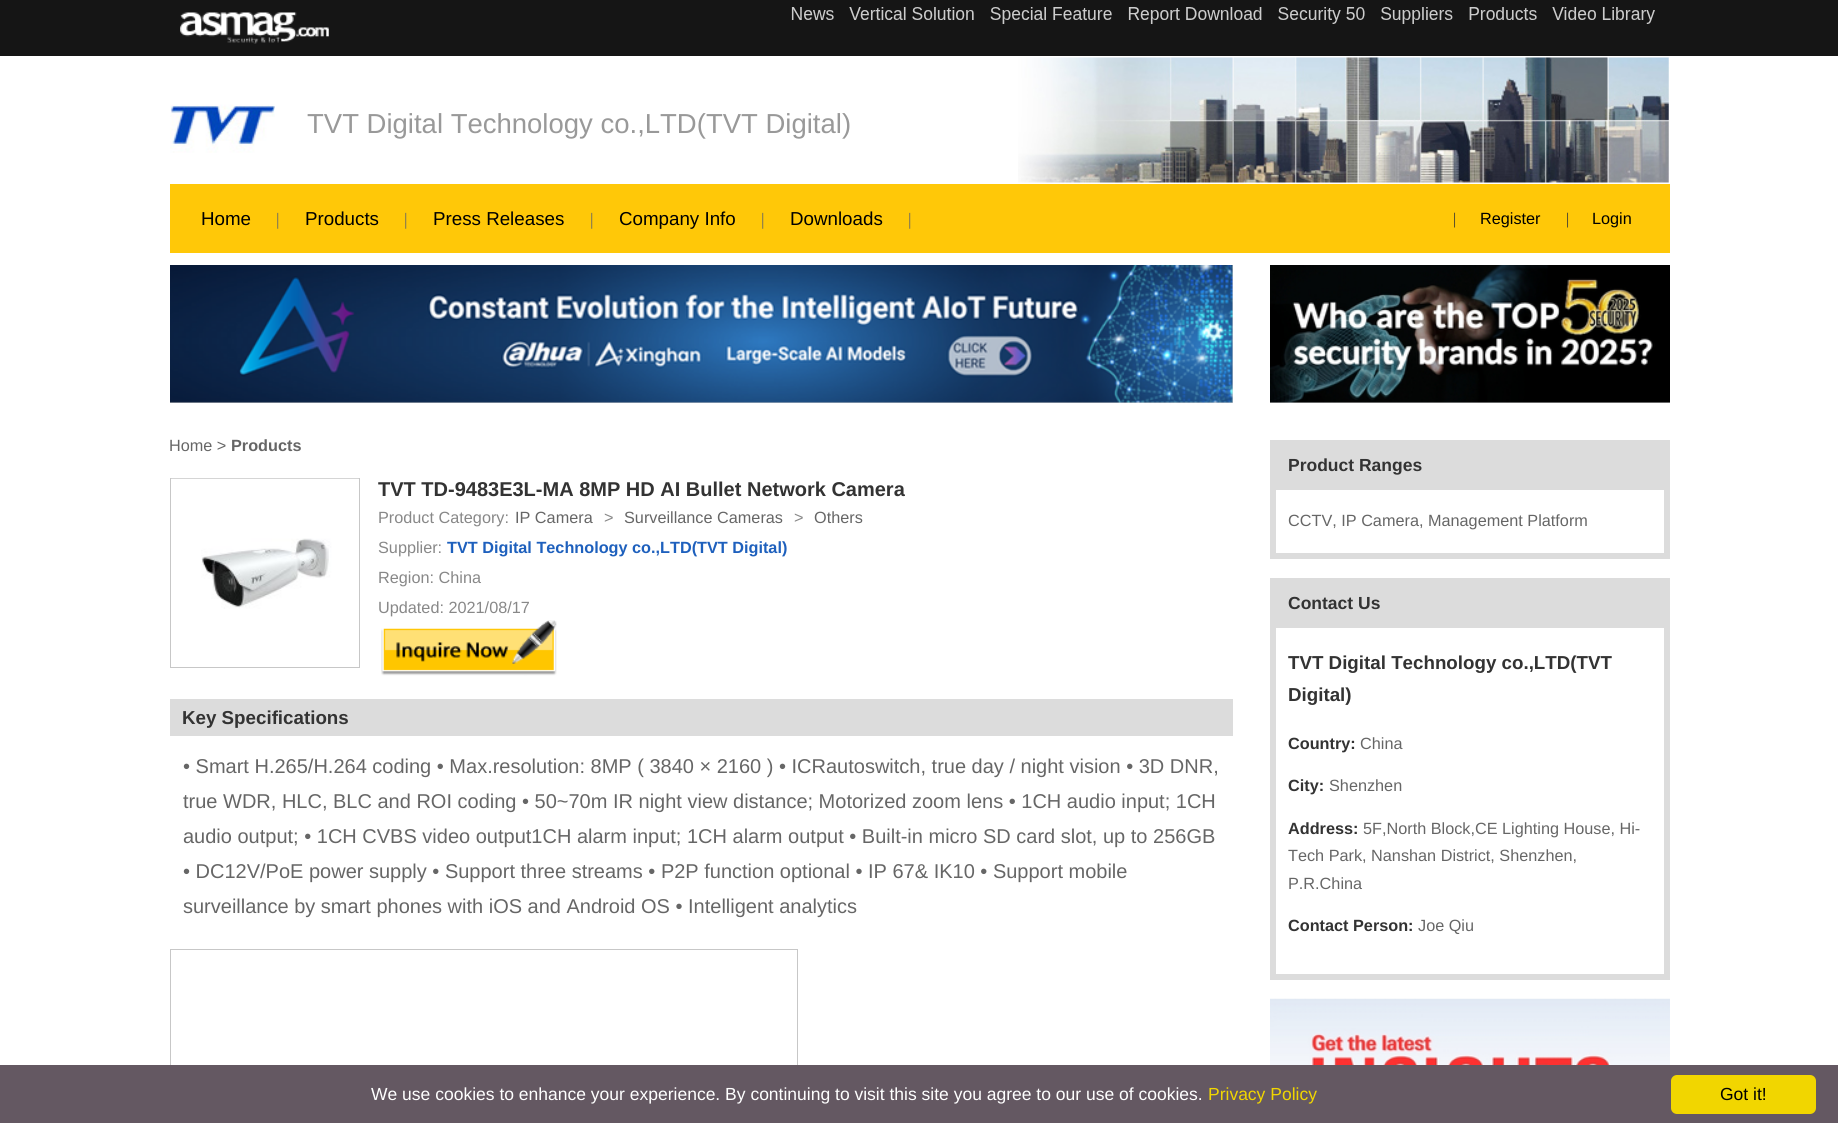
#include <cairo.h>
#include <math.h>
#include <stddef.h>

typedef struct { double x, y; const char *s; } line_t;

static void ink(cairo_t *ctx, unsigned color) {
    cairo_set_source_rgb(ctx, (color >> 16) / 255.0, (color >> 8 & 255) / 255.0, (color & 255) / 255.0);
}

static void round_path(cairo_t *ctx, double x, double y, double w, double h, double r) {
    cairo_new_sub_path(ctx);
    cairo_arc(ctx, x + w - r, y + h - r, r, 0, M_PI / 2);
    cairo_arc(ctx, x + r, y + h - r, r, M_PI / 2, M_PI);
    cairo_arc(ctx, x + r, y + r, r, M_PI, 1.5 * M_PI);
    cairo_arc(ctx, x + w - r, y + r, r, 1.5 * M_PI, 2 * M_PI);
    cairo_close_path(ctx);
}

static void paste(cairo_t *ctx, const char *path, double x, double y, double w, double h) {
    cairo_surface_t *image = cairo_image_surface_create_from_png(path);
    cairo_save(ctx);
    cairo_set_source_surface(ctx, image, x, y);
    cairo_rectangle(ctx, x, y, w, h);
    cairo_fill(ctx);
    cairo_restore(ctx);
    cairo_surface_destroy(image);
}

int main(void) {
    cairo_surface_t *surface = cairo_image_surface_create(CAIRO_FORMAT_RGB24, 1838, 1123);
    cairo_t *ctx = cairo_create(surface);
    cairo_font_options_t *options = cairo_font_options_create();
    cairo_font_options_set_hint_metrics(options, CAIRO_HINT_METRICS_OFF);
    cairo_font_options_set_hint_style(options, CAIRO_HINT_STYLE_NONE);
    cairo_set_font_options(ctx, options);
    cairo_set_miter_limit(ctx, 4);
    ink(ctx, 0xFFFFFF);
    cairo_paint(ctx);
    ink(ctx, 0x151515);
    cairo_rectangle(ctx, 0, 0, 1838, 56);
    cairo_fill(ctx);
    paste(ctx, "media/1.png", 180, 12, 149, 32);
    paste(ctx, "media/2.png", 791, 7, 864, 17);
    paste(ctx, "media/3.png", 170, 104, 105, 49);
    cairo_select_font_face(ctx, "Liberation Sans", CAIRO_FONT_SLANT_NORMAL, CAIRO_FONT_WEIGHT_NORMAL);
    cairo_set_font_size(ctx, 27.5);
    ink(ctx, 0x999999);
    cairo_move_to(ctx, 307, 133);
    cairo_show_text(ctx, "TVT Digital Technology co.,LTD(TVT Digital)");
    paste(ctx, "media/4.png", 1018, 57, 652, 126);
    ink(ctx, 0xFFC808);
    cairo_rectangle(ctx, 170, 184, 1500, 69);
    cairo_fill(ctx);
    cairo_set_font_size(ctx, 18.75);
    ink(ctx, 0x000000);
    cairo_move_to(ctx, 201, 225);
    cairo_show_text(ctx, "Home");
    cairo_select_font_face(ctx, "Liberation Serif", CAIRO_FONT_SLANT_NORMAL, CAIRO_FONT_WEIGHT_NORMAL);
    cairo_set_font_size(ctx, 17.5);
    ink(ctx, 0x666666);
    cairo_move_to(ctx, 276, 225);
    cairo_show_text(ctx, "|");
    cairo_select_font_face(ctx, "Liberation Sans", CAIRO_FONT_SLANT_NORMAL, CAIRO_FONT_WEIGHT_NORMAL);
    cairo_set_font_size(ctx, 18.75);
    ink(ctx, 0x000000);
    cairo_move_to(ctx, 305, 225);
    cairo_show_text(ctx, "Products");
    cairo_select_font_face(ctx, "Liberation Serif", CAIRO_FONT_SLANT_NORMAL, CAIRO_FONT_WEIGHT_NORMAL);
    cairo_set_font_size(ctx, 17.5);
    ink(ctx, 0x666666);
    cairo_move_to(ctx, 404, 225);
    cairo_show_text(ctx, "|");
    cairo_select_font_face(ctx, "Liberation Sans", CAIRO_FONT_SLANT_NORMAL, CAIRO_FONT_WEIGHT_NORMAL);
    cairo_set_font_size(ctx, 18.75);
    ink(ctx, 0x000000);
    cairo_move_to(ctx, 433, 225);
    cairo_show_text(ctx, "Press Releases");
    cairo_select_font_face(ctx, "Liberation Serif", CAIRO_FONT_SLANT_NORMAL, CAIRO_FONT_WEIGHT_NORMAL);
    cairo_set_font_size(ctx, 17.5);
    ink(ctx, 0x666666);
    cairo_move_to(ctx, 590, 225);
    cairo_show_text(ctx, "|");
    cairo_select_font_face(ctx, "Liberation Sans", CAIRO_FONT_SLANT_NORMAL, CAIRO_FONT_WEIGHT_NORMAL);
    cairo_set_font_size(ctx, 18.75);
    ink(ctx, 0x000000);
    cairo_move_to(ctx, 619, 225);
    cairo_show_text(ctx, "Company Info");
    cairo_select_font_face(ctx, "Liberation Serif", CAIRO_FONT_SLANT_NORMAL, CAIRO_FONT_WEIGHT_NORMAL);
    cairo_set_font_size(ctx, 17.5);
    ink(ctx, 0x666666);
    cairo_move_to(ctx, 761, 225);
    cairo_show_text(ctx, "|");
    cairo_select_font_face(ctx, "Liberation Sans", CAIRO_FONT_SLANT_NORMAL, CAIRO_FONT_WEIGHT_NORMAL);
    cairo_set_font_size(ctx, 18.75);
    ink(ctx, 0x000000);
    cairo_move_to(ctx, 790, 225);
    cairo_show_text(ctx, "Downloads");
    cairo_select_font_face(ctx, "Liberation Serif", CAIRO_FONT_SLANT_NORMAL, CAIRO_FONT_WEIGHT_NORMAL);
    cairo_set_font_size(ctx, 17.5);
    ink(ctx, 0x666666);
    cairo_move_to(ctx, 908, 225);
    cairo_show_text(ctx, "|");
    cairo_set_font_size(ctx, 16.25);
    ink(ctx, 0x333333);
    cairo_move_to(ctx, 1453, 224);
    cairo_show_text(ctx, "|");
    cairo_select_font_face(ctx, "Liberation Sans", CAIRO_FONT_SLANT_NORMAL, CAIRO_FONT_WEIGHT_NORMAL);
    ink(ctx, 0x000000);
    cairo_move_to(ctx, 1480, 224);
    cairo_show_text(ctx, "Register");
    cairo_select_font_face(ctx, "Liberation Serif", CAIRO_FONT_SLANT_NORMAL, CAIRO_FONT_WEIGHT_NORMAL);
    ink(ctx, 0x333333);
    cairo_move_to(ctx, 1566, 224);
    cairo_show_text(ctx, "|");
    cairo_select_font_face(ctx, "Liberation Sans", CAIRO_FONT_SLANT_NORMAL, CAIRO_FONT_WEIGHT_NORMAL);
    ink(ctx, 0x000000);
    cairo_move_to(ctx, 1592, 224);
    cairo_show_text(ctx, "Login");
    ink(ctx, 0xCCCCCC);
    cairo_rectangle(ctx, 170, 265, 1063, 138);
    cairo_fill(ctx);
    paste(ctx, "media/5.png", 170, 265, 1063, 138);
    cairo_rectangle(ctx, 1270, 402, 400, 1);
    cairo_fill(ctx);
    paste(ctx, "media/6.png", 1270, 265, 400, 138);
    ink(ctx, 0x666666);
    cairo_move_to(ctx, 169, 451);
    cairo_show_text(ctx, "Home >");
    cairo_select_font_face(ctx, "Liberation Sans", CAIRO_FONT_SLANT_NORMAL, CAIRO_FONT_WEIGHT_BOLD);
    cairo_move_to(ctx, 231, 451);
    cairo_show_text(ctx, "Products");
    cairo_rectangle(ctx, 170.5, 478.5, 189, 189);
    ink(ctx, 0xC7C7C7);
    cairo_set_line_width(ctx, 1);
    cairo_stroke(ctx);
    paste(ctx, "media/7.png", 171, 478, 188, 131);
    cairo_set_font_size(ctx, 20);
    ink(ctx, 0x333333);
    cairo_move_to(ctx, 378, 496);
    cairo_show_text(ctx, "TVT TD-9483E3L-MA 8MP HD AI Bullet Network Camera");
    cairo_select_font_face(ctx, "Liberation Sans", CAIRO_FONT_SLANT_NORMAL, CAIRO_FONT_WEIGHT_NORMAL);
    cairo_set_font_size(ctx, 16.25);
    ink(ctx, 0x888888);
    cairo_move_to(ctx, 378, 523);
    cairo_show_text(ctx, "Product Category:");
    ink(ctx, 0x666666);
    cairo_move_to(ctx, 515, 523);
    cairo_show_text(ctx, "IP Camera");
    ink(ctx, 0x888888);
    cairo_move_to(ctx, 604, 523);
    cairo_show_text(ctx, ">");
    ink(ctx, 0x666666);
    cairo_move_to(ctx, 624, 523);
    cairo_show_text(ctx, "Surveillance Cameras");
    ink(ctx, 0x888888);
    cairo_move_to(ctx, 794, 523);
    cairo_show_text(ctx, ">");
    ink(ctx, 0x666666);
    cairo_move_to(ctx, 814, 523);
    cairo_show_text(ctx, "Others");
    ink(ctx, 0x888888);
    cairo_move_to(ctx, 378, 553);
    cairo_show_text(ctx, "Supplier:");
    cairo_select_font_face(ctx, "Liberation Sans", CAIRO_FONT_SLANT_NORMAL, CAIRO_FONT_WEIGHT_BOLD);
    ink(ctx, 0x1E60BD);
    cairo_move_to(ctx, 447, 553);
    cairo_show_text(ctx, "TVT Digital Technology co.,LTD(TVT Digital)");
    cairo_select_font_face(ctx, "Liberation Sans", CAIRO_FONT_SLANT_NORMAL, CAIRO_FONT_WEIGHT_NORMAL);
    ink(ctx, 0x888888);
    cairo_move_to(ctx, 378, 583);
    cairo_show_text(ctx, "Region: China");
    cairo_move_to(ctx, 378, 613);
    cairo_show_text(ctx, "Updated: 2021/08/17");
    paste(ctx, "media/8.png", 381, 620, 176, 56);
    ink(ctx, 0xDCDCDC);
    cairo_rectangle(ctx, 170, 699, 1063, 37);
    cairo_fill(ctx);
    cairo_select_font_face(ctx, "Liberation Sans", CAIRO_FONT_SLANT_NORMAL, CAIRO_FONT_WEIGHT_BOLD);
    cairo_set_font_size(ctx, 18.75);
    ink(ctx, 0x333333);
    cairo_move_to(ctx, 182, 724);
    cairo_show_text(ctx, "Key Specifications");
    cairo_select_font_face(ctx, "Liberation Sans", CAIRO_FONT_SLANT_NORMAL, CAIRO_FONT_WEIGHT_NORMAL);
    cairo_set_font_size(ctx, 20);
    ink(ctx, 0x666666);
    {
        static const line_t items[] = {
            {183, 773, "• Smart H.265/H.264 coding • Max.resolution: 8MP ( 3840 × 2160 ) • ICRautoswitch, true day / night vision • 3D DNR,"},
            {183, 808, "true WDR, HLC, BLC and ROI coding • 50~70m IR night view distance; Motorized zoom lens • 1CH audio input; 1CH"},
            {183, 843, "audio output; • 1CH CVBS video output1CH alarm input; 1CH alarm output • Built-in micro SD card slot, up to 256GB"},
            {183, 878, "• DC12V/PoE power supply • Support three streams • P2P function optional • IP 67& IK10 • Support mobile"},
            {183, 913, "surveillance by smart phones with iOS and Android OS • Intelligent analytics"},
        };
        for (size_t i = 0; i < sizeof items / sizeof *items; i++) {
            cairo_move_to(ctx, items[i].x, items[i].y);
            cairo_show_text(ctx, items[i].s);
        }
    }
    cairo_rectangle(ctx, 170.5, 949.5, 627, 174);
    ink(ctx, 0xC7C7C7);
    cairo_stroke(ctx);
    ink(ctx, 0xDCDCDC);
    cairo_rectangle(ctx, 1270, 440, 400, 119);
    cairo_fill(ctx);
    cairo_select_font_face(ctx, "Liberation Sans", CAIRO_FONT_SLANT_NORMAL, CAIRO_FONT_WEIGHT_BOLD);
    cairo_set_font_size(ctx, 17.5);
    ink(ctx, 0x333333);
    cairo_move_to(ctx, 1288, 471);
    cairo_show_text(ctx, "Product Ranges");
    ink(ctx, 0xFFFFFF);
    cairo_rectangle(ctx, 1276, 490, 388, 63);
    cairo_fill(ctx);
    cairo_select_font_face(ctx, "Liberation Sans", CAIRO_FONT_SLANT_NORMAL, CAIRO_FONT_WEIGHT_NORMAL);
    cairo_set_font_size(ctx, 16.25);
    ink(ctx, 0x666666);
    cairo_move_to(ctx, 1288, 526);
    cairo_show_text(ctx, "CCTV, IP Camera, Management Platform");
    ink(ctx, 0xDCDCDC);
    cairo_rectangle(ctx, 1270, 578, 400, 402);
    cairo_fill(ctx);
    cairo_select_font_face(ctx, "Liberation Sans", CAIRO_FONT_SLANT_NORMAL, CAIRO_FONT_WEIGHT_BOLD);
    cairo_set_font_size(ctx, 17.5);
    ink(ctx, 0x333333);
    cairo_move_to(ctx, 1288, 609);
    cairo_show_text(ctx, "Contact Us");
    ink(ctx, 0xFFFFFF);
    cairo_rectangle(ctx, 1276, 628, 388, 346);
    cairo_fill(ctx);
    cairo_set_font_size(ctx, 18.75);
    ink(ctx, 0x333333);
    cairo_move_to(ctx, 1288, 669);
    cairo_show_text(ctx, "TVT Digital Technology co.,LTD(TVT");
    cairo_move_to(ctx, 1288, 701);
    cairo_show_text(ctx, "Digital)");
    cairo_set_font_size(ctx, 16.25);
    cairo_move_to(ctx, 1288, 749);
    cairo_show_text(ctx, "Country:");
    cairo_select_font_face(ctx, "Liberation Sans", CAIRO_FONT_SLANT_NORMAL, CAIRO_FONT_WEIGHT_NORMAL);
    ink(ctx, 0x666666);
    cairo_move_to(ctx, 1360, 749);
    cairo_show_text(ctx, "China");
    cairo_select_font_face(ctx, "Liberation Sans", CAIRO_FONT_SLANT_NORMAL, CAIRO_FONT_WEIGHT_BOLD);
    ink(ctx, 0x333333);
    cairo_move_to(ctx, 1288, 791);
    cairo_show_text(ctx, "City:");
    cairo_select_font_face(ctx, "Liberation Sans", CAIRO_FONT_SLANT_NORMAL, CAIRO_FONT_WEIGHT_NORMAL);
    ink(ctx, 0x666666);
    cairo_move_to(ctx, 1329, 791);
    cairo_show_text(ctx, "Shenzhen");
    cairo_select_font_face(ctx, "Liberation Sans", CAIRO_FONT_SLANT_NORMAL, CAIRO_FONT_WEIGHT_BOLD);
    ink(ctx, 0x333333);
    cairo_move_to(ctx, 1288, 834);
    cairo_show_text(ctx, "Address:");
    cairo_select_font_face(ctx, "Liberation Sans", CAIRO_FONT_SLANT_NORMAL, CAIRO_FONT_WEIGHT_NORMAL);
    ink(ctx, 0x666666);
    {
        static const line_t items[] = {
            {1363, 834, "5F,North Block,CE Lighting House, Hi-"},
            {1288, 861, "Tech Park, Nanshan District, Shenzhen,"},
            {1288, 889, "P.R.China"},
        };
        for (size_t i = 0; i < sizeof items / sizeof *items; i++) {
            cairo_move_to(ctx, items[i].x, items[i].y);
            cairo_show_text(ctx, items[i].s);
        }
    }
    cairo_select_font_face(ctx, "Liberation Sans", CAIRO_FONT_SLANT_NORMAL, CAIRO_FONT_WEIGHT_BOLD);
    ink(ctx, 0x333333);
    cairo_move_to(ctx, 1288, 931);
    cairo_show_text(ctx, "Contact Person:");
    cairo_select_font_face(ctx, "Liberation Sans", CAIRO_FONT_SLANT_NORMAL, CAIRO_FONT_WEIGHT_NORMAL);
    ink(ctx, 0x666666);
    cairo_move_to(ctx, 1418, 931);
    cairo_show_text(ctx, "Joe Qiu");
    paste(ctx, "media/9.png", 1270, 998, 400, 67);
    ink(ctx, 0x645862);
    cairo_rectangle(ctx, 0, 1065, 1838, 58);
    cairo_fill(ctx);
    cairo_set_font_size(ctx, 17.5);
    ink(ctx, 0xFFFFFF);
    cairo_move_to(ctx, 371, 1100);
    cairo_show_text(ctx, "We use cookies to enhance your experience. By continuing to visit this site you agree to our use of cookies.");
    ink(ctx, 0xF1D600);
    cairo_move_to(ctx, 1208, 1100);
    cairo_show_text(ctx, "Privacy Policy");
    round_path(ctx, 1671, 1075, 145, 39, 6);
    cairo_fill(ctx);
    ink(ctx, 0x000000);
    cairo_move_to(ctx, 1720, 1100);
    cairo_show_text(ctx, "Got it!");
    cairo_surface_write_to_png(surface, "image.png");
    cairo_font_options_destroy(options);
    cairo_destroy(ctx);
    cairo_surface_destroy(surface);
    return 0;
}
